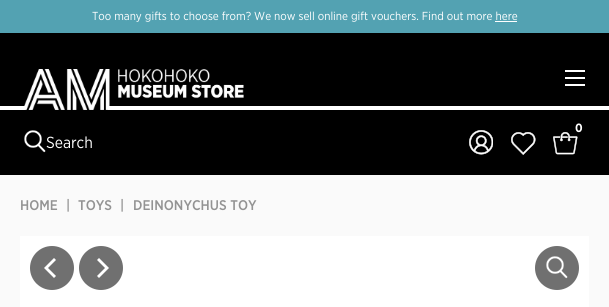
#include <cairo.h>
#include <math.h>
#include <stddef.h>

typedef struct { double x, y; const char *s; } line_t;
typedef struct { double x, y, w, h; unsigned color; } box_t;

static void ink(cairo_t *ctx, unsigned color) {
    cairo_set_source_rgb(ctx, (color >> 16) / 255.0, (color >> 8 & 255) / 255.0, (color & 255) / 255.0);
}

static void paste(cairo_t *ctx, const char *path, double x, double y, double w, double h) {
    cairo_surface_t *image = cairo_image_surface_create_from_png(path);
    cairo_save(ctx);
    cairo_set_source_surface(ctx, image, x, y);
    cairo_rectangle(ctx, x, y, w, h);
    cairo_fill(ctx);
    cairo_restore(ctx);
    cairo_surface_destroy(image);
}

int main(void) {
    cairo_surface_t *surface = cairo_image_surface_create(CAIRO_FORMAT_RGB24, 609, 307);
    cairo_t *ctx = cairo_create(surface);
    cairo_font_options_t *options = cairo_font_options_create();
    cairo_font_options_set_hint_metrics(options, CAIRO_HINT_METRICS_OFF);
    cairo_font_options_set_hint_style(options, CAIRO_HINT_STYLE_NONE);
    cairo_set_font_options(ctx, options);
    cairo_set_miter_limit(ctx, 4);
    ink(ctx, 0xFAFAFA);
    cairo_paint(ctx);
    ink(ctx, 0x53A2B2);
    cairo_rectangle(ctx, 0, 0, 609, 33);
    cairo_fill(ctx);
    cairo_select_font_face(ctx, "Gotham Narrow", CAIRO_FONT_SLANT_NORMAL, CAIRO_FONT_WEIGHT_NORMAL);
    cairo_set_font_size(ctx, 11.6);
    ink(ctx, 0xFFFFFF);
    cairo_move_to(ctx, 92, 20);
    cairo_show_text(ctx, "Too many gifts to choose from? We now sell online gift vouchers. Find out more here");
    cairo_rectangle(ctx, 495, 21, 22, 1);
    cairo_fill(ctx);
    ink(ctx, 0x000000);
    cairo_rectangle(ctx, 0, 33, 609, 142);
    cairo_fill(ctx);
    paste(ctx, "media/1.png", 24, 69, 220, 41);
    {
        static const box_t items[] = {
            {0, 106, 25, 4, 0xFFFFFF},
            {108, 106, 501, 4, 0xFFFFFF},
            {565, 70, 20, 2, 0xFFFFFF},
            {565, 77, 20, 2, 0xFFFFFF},
            {565, 84, 20, 2, 0xFFFFFF},
        };
        for (size_t i = 0; i < sizeof items / sizeof *items; i++) {
            ink(ctx, items[i].color);
            cairo_rectangle(ctx, items[i].x, items[i].y, items[i].w, items[i].h);
            cairo_fill(ctx);
        }
    }
    paste(ctx, "media/2.png", 553, 132, 25, 23);
    cairo_select_font_face(ctx, "Gotham Narrow", CAIRO_FONT_SLANT_NORMAL, CAIRO_FONT_WEIGHT_BOLD);
    cairo_set_font_size(ctx, 12);
    cairo_move_to(ctx, 575, 132);
    cairo_show_text(ctx, "0");
    paste(ctx, "media/3.png", 469, 130, 24, 25);
    paste(ctx, "media/4.png", 511, 132, 25, 23);
    paste(ctx, "media/5.png", 24, 130, 22, 23);
    cairo_select_font_face(ctx, "Gotham Narrow", CAIRO_FONT_SLANT_NORMAL, CAIRO_FONT_WEIGHT_NORMAL);
    cairo_set_font_size(ctx, 16);
    cairo_move_to(ctx, 46, 148);
    cairo_show_text(ctx, "Search");
    cairo_select_font_face(ctx, "Gotham Narrow Medium", CAIRO_FONT_SLANT_NORMAL, CAIRO_FONT_WEIGHT_NORMAL);
    cairo_set_font_size(ctx, 14);
    ink(ctx, 0x939393);
    {
        static const line_t items[] = {
            {20, 210, "HOME"},
            {66, 210, "|"},
            {78, 210, "TOYS"},
            {120, 210, "|"},
            {133, 210, "DEINONYCHUS TOY"},
        };
        for (size_t i = 0; i < sizeof items / sizeof *items; i++) {
            cairo_move_to(ctx, items[i].x, items[i].y);
            cairo_show_text(ctx, items[i].s);
        }
    }
    ink(ctx, 0xFFFFFF);
    cairo_rectangle(ctx, 20, 236, 569, 71);
    cairo_fill(ctx);
    ink(ctx, 0x707070);
    cairo_arc(ctx, 557, 268, 22, 0, 2 * M_PI);
    cairo_fill(ctx);
    paste(ctx, "media/6.png", 546, 256, 22, 23);
    cairo_arc(ctx, 52, 268, 22, 0, 2 * M_PI);
    cairo_fill(ctx);
    ink(ctx, 0xFFFFFF);
    cairo_new_path(ctx);
    cairo_move_to(ctx, 44, 268);
    cairo_line_to(ctx, 54, 278);
    cairo_line_to(ctx, 56, 276);
    cairo_line_to(ctx, 48, 268);
    cairo_line_to(ctx, 56, 260);
    cairo_line_to(ctx, 54, 258);
    cairo_close_path(ctx);
    cairo_fill(ctx);
    ink(ctx, 0x707070);
    cairo_arc(ctx, 101, 268, 22, 0, 2 * M_PI);
    cairo_fill(ctx);
    ink(ctx, 0xFFFFFF);
    cairo_new_path(ctx);
    cairo_move_to(ctx, 109, 268);
    cairo_line_to(ctx, 99, 258);
    cairo_line_to(ctx, 97, 260);
    cairo_line_to(ctx, 105, 268);
    cairo_line_to(ctx, 97, 276);
    cairo_line_to(ctx, 99, 278);
    cairo_close_path(ctx);
    cairo_fill(ctx);
    cairo_surface_write_to_png(surface, "image.png");
    cairo_font_options_destroy(options);
    cairo_destroy(ctx);
    cairo_surface_destroy(surface);
    return 0;
}
